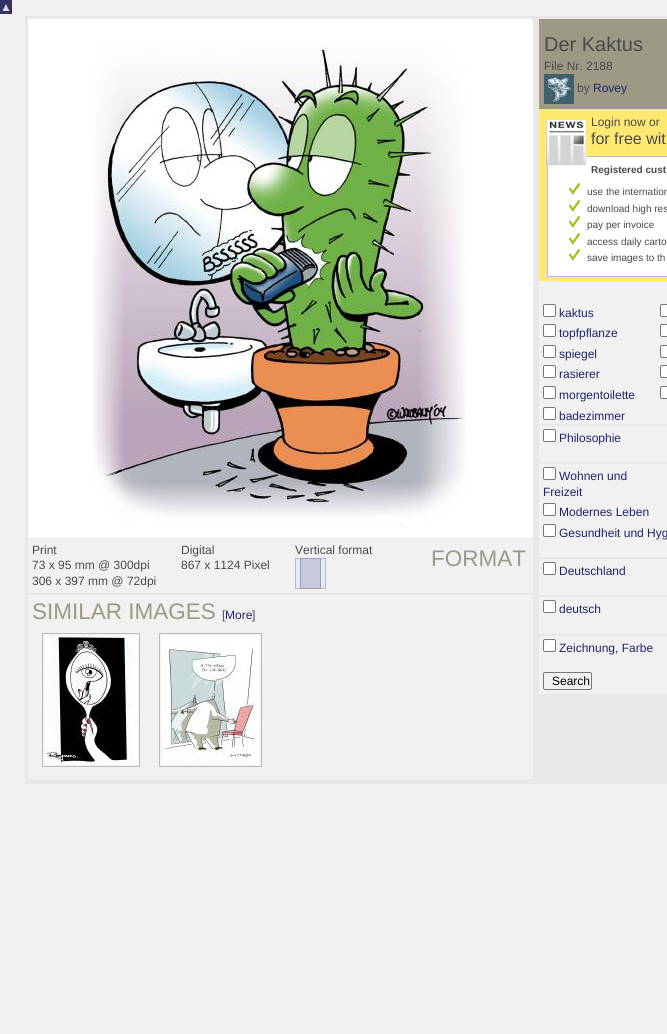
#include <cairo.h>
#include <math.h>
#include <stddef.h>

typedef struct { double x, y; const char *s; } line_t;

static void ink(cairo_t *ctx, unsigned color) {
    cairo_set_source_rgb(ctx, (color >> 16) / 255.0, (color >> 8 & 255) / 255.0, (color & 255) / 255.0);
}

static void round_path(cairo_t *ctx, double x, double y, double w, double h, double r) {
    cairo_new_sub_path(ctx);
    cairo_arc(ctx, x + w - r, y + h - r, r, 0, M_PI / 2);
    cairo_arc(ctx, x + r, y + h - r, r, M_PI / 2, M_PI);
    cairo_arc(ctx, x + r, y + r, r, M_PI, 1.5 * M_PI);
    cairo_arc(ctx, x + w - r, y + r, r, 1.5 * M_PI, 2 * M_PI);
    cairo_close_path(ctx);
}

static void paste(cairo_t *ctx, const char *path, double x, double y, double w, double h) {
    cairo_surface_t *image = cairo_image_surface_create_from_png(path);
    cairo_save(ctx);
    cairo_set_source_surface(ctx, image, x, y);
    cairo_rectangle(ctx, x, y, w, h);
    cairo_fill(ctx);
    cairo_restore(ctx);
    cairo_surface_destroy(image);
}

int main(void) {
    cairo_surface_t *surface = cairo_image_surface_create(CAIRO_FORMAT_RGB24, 667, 1034);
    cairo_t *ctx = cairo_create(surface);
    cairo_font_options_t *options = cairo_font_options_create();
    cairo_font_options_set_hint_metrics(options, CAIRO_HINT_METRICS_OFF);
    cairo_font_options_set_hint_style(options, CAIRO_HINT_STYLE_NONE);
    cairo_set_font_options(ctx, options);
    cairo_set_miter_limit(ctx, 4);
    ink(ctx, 0xF1F1F1);
    cairo_paint(ctx);
    ink(ctx, 0x333366);
    cairo_rectangle(ctx, 0, 0, 12, 14);
    cairo_fill(ctx);
    cairo_select_font_face(ctx, "Liberation Sans", CAIRO_FONT_SLANT_NORMAL, CAIRO_FONT_WEIGHT_NORMAL);
    cairo_set_font_size(ctx, 12);
    ink(ctx, 0xD8D9E5);
    cairo_move_to(ctx, 0, 11);
    cairo_show_text(ctx, "▲");
    ink(ctx, 0xE8E8E8);
    cairo_rectangle(ctx, 25, 16, 642, 768);
    cairo_fill(ctx);
    ink(ctx, 0xFFFFFF);
    cairo_rectangle(ctx, 28, 19, 505, 519);
    cairo_fill(ctx);
    paste(ctx, "media/1.png", 92, 45, 374, 483);
    ink(ctx, 0xF1F1F1);
    cairo_rectangle(ctx, 28, 539, 505, 54);
    cairo_fill(ctx);
    ink(ctx, 0x494949);
    {
        static const line_t items[] = {
            {32, 554, "Print"},
            {32, 569, "73 x 95 mm @ 300dpi"},
            {32, 585, "306 x 397 mm @ 72dpi"},
            {181, 554, "Digital"},
            {181, 569, "867 x 1124 Pixel"},
            {295, 554, "Vertical format"},
        };
        for (size_t i = 0; i < sizeof items / sizeof *items; i++) {
            cairo_move_to(ctx, items[i].x, items[i].y);
            cairo_show_text(ctx, items[i].s);
        }
    }
    paste(ctx, "media/2.png", 295, 558, 31, 31);
    cairo_set_font_size(ctx, 22.5);
    ink(ctx, 0x9C9984);
    cairo_move_to(ctx, 431, 566);
    cairo_show_text(ctx, "FORMAT");
    ink(ctx, 0xF1F1F1);
    cairo_rectangle(ctx, 28, 595, 505, 184);
    cairo_fill(ctx);
    ink(ctx, 0x9C9984);
    cairo_move_to(ctx, 32, 619);
    cairo_show_text(ctx, "SIMILAR IMAGES");
    cairo_set_font_size(ctx, 12);
    ink(ctx, 0x494949);
    cairo_move_to(ctx, 222, 619);
    cairo_show_text(ctx, "[");
    ink(ctx, 0x1D246C);
    cairo_move_to(ctx, 225, 619);
    cairo_show_text(ctx, "More");
    ink(ctx, 0x494949);
    cairo_move_to(ctx, 252, 619);
    cairo_show_text(ctx, "]");
    cairo_rectangle(ctx, 42.5, 633.5, 97, 133);
    ink(ctx, 0xBBBBBB);
    cairo_set_line_width(ctx, 1);
    cairo_stroke(ctx);
    paste(ctx, "media/3.png", 44, 635, 94, 130);
    cairo_rectangle(ctx, 159.5, 633.5, 102, 133);
    cairo_stroke(ctx);
    paste(ctx, "media/4.png", 161, 635, 99, 130);
    ink(ctx, 0x9C9984);
    cairo_rectangle(ctx, 539, 19, 128, 90);
    cairo_fill(ctx);
    cairo_set_font_size(ctx, 20);
    ink(ctx, 0x494949);
    cairo_move_to(ctx, 544, 51);
    cairo_show_text(ctx, "Der Kaktus");
    cairo_set_font_size(ctx, 12);
    cairo_move_to(ctx, 544, 70);
    cairo_show_text(ctx, "File Nr. 2188");
    paste(ctx, "media/5.png", 544, 74, 30, 30);
    cairo_move_to(ctx, 577, 92);
    cairo_show_text(ctx, "by");
    ink(ctx, 0x1D246C);
    cairo_move_to(ctx, 593, 92);
    cairo_show_text(ctx, "Rovey");
    ink(ctx, 0xFFE970);
    cairo_rectangle(ctx, 539, 109, 128, 172);
    cairo_fill(ctx);
    ink(ctx, 0xFFFFFF);
    cairo_rectangle(ctx, 547.5, 156.5, 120, 120);
    cairo_fill_preserve(ctx);
    ink(ctx, 0xB9BBD0);
    cairo_stroke(ctx);
    paste(ctx, "media/6.png", 546, 120, 40, 45);
    ink(ctx, 0x494949);
    cairo_move_to(ctx, 591, 126);
    cairo_show_text(ctx, "Login now or");
    cairo_set_font_size(ctx, 16);
    cairo_move_to(ctx, 591, 144);
    cairo_show_text(ctx, "for free wit");
    cairo_select_font_face(ctx, "Liberation Sans", CAIRO_FONT_SLANT_NORMAL, CAIRO_FONT_WEIGHT_BOLD);
    cairo_set_font_size(ctx, 10);
    cairo_move_to(ctx, 591, 173);
    cairo_show_text(ctx, "Registered cust");
    paste(ctx, "media/7.png", 569, 183, 11, 12);
    cairo_select_font_face(ctx, "Liberation Sans", CAIRO_FONT_SLANT_NORMAL, CAIRO_FONT_WEIGHT_NORMAL);
    cairo_move_to(ctx, 587, 195);
    cairo_show_text(ctx, "use the internation");
    paste(ctx, "media/7.png", 569, 200, 11, 12);
    cairo_move_to(ctx, 587, 212);
    cairo_show_text(ctx, "download high res");
    paste(ctx, "media/7.png", 569, 216, 11, 12);
    cairo_move_to(ctx, 587, 228);
    cairo_show_text(ctx, "pay per invoice");
    paste(ctx, "media/7.png", 569, 233, 11, 12);
    cairo_move_to(ctx, 587, 245);
    cairo_show_text(ctx, "access daily carto");
    paste(ctx, "media/7.png", 569, 249, 11, 12);
    cairo_move_to(ctx, 587, 261);
    cairo_show_text(ctx, "save images to th");
    ink(ctx, 0xF1F1F1);
    cairo_rectangle(ctx, 539, 281, 128, 413);
    cairo_fill(ctx);
    ink(ctx, 0xFFFFFF);
    round_path(ctx, 543.5, 304.5, 12, 12, 1.5);
    cairo_fill_preserve(ctx);
    ink(ctx, 0x767676);
    cairo_stroke(ctx);
    cairo_set_font_size(ctx, 12);
    ink(ctx, 0x1D246C);
    cairo_move_to(ctx, 559, 317);
    cairo_show_text(ctx, "kaktus");
    ink(ctx, 0xFFFFFF);
    round_path(ctx, 660.5, 304.5, 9, 12, 1.5);
    cairo_fill_preserve(ctx);
    ink(ctx, 0x767676);
    cairo_stroke(ctx);
    ink(ctx, 0xFFFFFF);
    round_path(ctx, 543.5, 324.5, 12, 12, 1.5);
    cairo_fill_preserve(ctx);
    ink(ctx, 0x767676);
    cairo_stroke(ctx);
    ink(ctx, 0x1D246C);
    cairo_move_to(ctx, 559, 337);
    cairo_show_text(ctx, "topfpflanze");
    ink(ctx, 0xFFFFFF);
    round_path(ctx, 660.5, 324.5, 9, 12, 1.5);
    cairo_fill_preserve(ctx);
    ink(ctx, 0x767676);
    cairo_stroke(ctx);
    ink(ctx, 0xFFFFFF);
    round_path(ctx, 543.5, 345.5, 12, 12, 1.5);
    cairo_fill_preserve(ctx);
    ink(ctx, 0x767676);
    cairo_stroke(ctx);
    ink(ctx, 0x1D246C);
    cairo_move_to(ctx, 559, 358);
    cairo_show_text(ctx, "spiegel");
    ink(ctx, 0xFFFFFF);
    round_path(ctx, 660.5, 345.5, 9, 12, 1.5);
    cairo_fill_preserve(ctx);
    ink(ctx, 0x767676);
    cairo_stroke(ctx);
    ink(ctx, 0xFFFFFF);
    round_path(ctx, 543.5, 365.5, 12, 12, 1.5);
    cairo_fill_preserve(ctx);
    ink(ctx, 0x767676);
    cairo_stroke(ctx);
    ink(ctx, 0x1D246C);
    cairo_move_to(ctx, 559, 378);
    cairo_show_text(ctx, "rasierer");
    ink(ctx, 0xFFFFFF);
    round_path(ctx, 660.5, 365.5, 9, 12, 1.5);
    cairo_fill_preserve(ctx);
    ink(ctx, 0x767676);
    cairo_stroke(ctx);
    ink(ctx, 0xFFFFFF);
    round_path(ctx, 543.5, 386.5, 12, 12, 1.5);
    cairo_fill_preserve(ctx);
    ink(ctx, 0x767676);
    cairo_stroke(ctx);
    ink(ctx, 0x1D246C);
    cairo_move_to(ctx, 559, 399);
    cairo_show_text(ctx, "morgentoilette");
    ink(ctx, 0xFFFFFF);
    round_path(ctx, 660.5, 386.5, 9, 12, 1.5);
    cairo_fill_preserve(ctx);
    ink(ctx, 0x767676);
    cairo_stroke(ctx);
    ink(ctx, 0xFFFFFF);
    round_path(ctx, 543.5, 407.5, 12, 12, 1.5);
    cairo_fill_preserve(ctx);
    ink(ctx, 0x767676);
    cairo_stroke(ctx);
    ink(ctx, 0x1D246C);
    cairo_move_to(ctx, 559, 420);
    cairo_show_text(ctx, "badezimmer");
    ink(ctx, 0xE8E8E8);
    cairo_rectangle(ctx, 539, 424, 128, 2);
    cairo_fill(ctx);
    ink(ctx, 0xFFFFFF);
    round_path(ctx, 543.5, 429.5, 12, 12, 1.5);
    cairo_fill_preserve(ctx);
    ink(ctx, 0x767676);
    cairo_stroke(ctx);
    ink(ctx, 0x1D246C);
    cairo_move_to(ctx, 559, 442);
    cairo_show_text(ctx, "Philosophie");
    ink(ctx, 0xE8E8E8);
    cairo_rectangle(ctx, 539, 462, 128, 2);
    cairo_fill(ctx);
    ink(ctx, 0xFFFFFF);
    round_path(ctx, 543.5, 467.5, 12, 12, 1.5);
    cairo_fill_preserve(ctx);
    ink(ctx, 0x767676);
    cairo_stroke(ctx);
    ink(ctx, 0x1D246C);
    cairo_move_to(ctx, 559, 480);
    cairo_show_text(ctx, "Wohnen und");
    cairo_move_to(ctx, 543, 496);
    cairo_show_text(ctx, "Freizeit");
    ink(ctx, 0xFFFFFF);
    round_path(ctx, 543.5, 503.5, 12, 12, 1.5);
    cairo_fill_preserve(ctx);
    ink(ctx, 0x767676);
    cairo_stroke(ctx);
    ink(ctx, 0x1D246C);
    cairo_move_to(ctx, 559, 516);
    cairo_show_text(ctx, "Modernes Leben");
    ink(ctx, 0xFFFFFF);
    round_path(ctx, 543.5, 524.5, 12, 12, 1.5);
    cairo_fill_preserve(ctx);
    ink(ctx, 0x767676);
    cairo_stroke(ctx);
    ink(ctx, 0x1D246C);
    cairo_move_to(ctx, 559, 537);
    cairo_show_text(ctx, "Gesundheit und Hyg");
    ink(ctx, 0xE8E8E8);
    cairo_rectangle(ctx, 539, 557, 128, 2);
    cairo_fill(ctx);
    ink(ctx, 0xFFFFFF);
    round_path(ctx, 543.5, 562.5, 12, 12, 1.5);
    cairo_fill_preserve(ctx);
    ink(ctx, 0x767676);
    cairo_stroke(ctx);
    ink(ctx, 0x1D246C);
    cairo_move_to(ctx, 559, 575);
    cairo_show_text(ctx, "Deutschland");
    ink(ctx, 0xE8E8E8);
    cairo_rectangle(ctx, 539, 595, 128, 2);
    cairo_fill(ctx);
    ink(ctx, 0xFFFFFF);
    round_path(ctx, 543.5, 600.5, 12, 12, 1.5);
    cairo_fill_preserve(ctx);
    ink(ctx, 0x767676);
    cairo_stroke(ctx);
    ink(ctx, 0x1D246C);
    cairo_move_to(ctx, 559, 613);
    cairo_show_text(ctx, "deutsch");
    ink(ctx, 0xE8E8E8);
    cairo_rectangle(ctx, 539, 634, 128, 2);
    cairo_fill(ctx);
    ink(ctx, 0xFFFFFF);
    round_path(ctx, 543.5, 639.5, 12, 12, 1.5);
    cairo_fill_preserve(ctx);
    ink(ctx, 0x767676);
    cairo_stroke(ctx);
    ink(ctx, 0x1D246C);
    cairo_move_to(ctx, 559, 652);
    cairo_show_text(ctx, "Zeichnung, Farbe");
    round_path(ctx, 543.5, 672.5, 48, 17, 1.5);
    ink(ctx, 0x767676);
    cairo_stroke(ctx);
    ink(ctx, 0x000000);
    cairo_move_to(ctx, 552, 685);
    cairo_show_text(ctx, "Search");
    cairo_surface_write_to_png(surface, "image.png");
    cairo_font_options_destroy(options);
    cairo_destroy(ctx);
    cairo_surface_destroy(surface);
    return 0;
}
